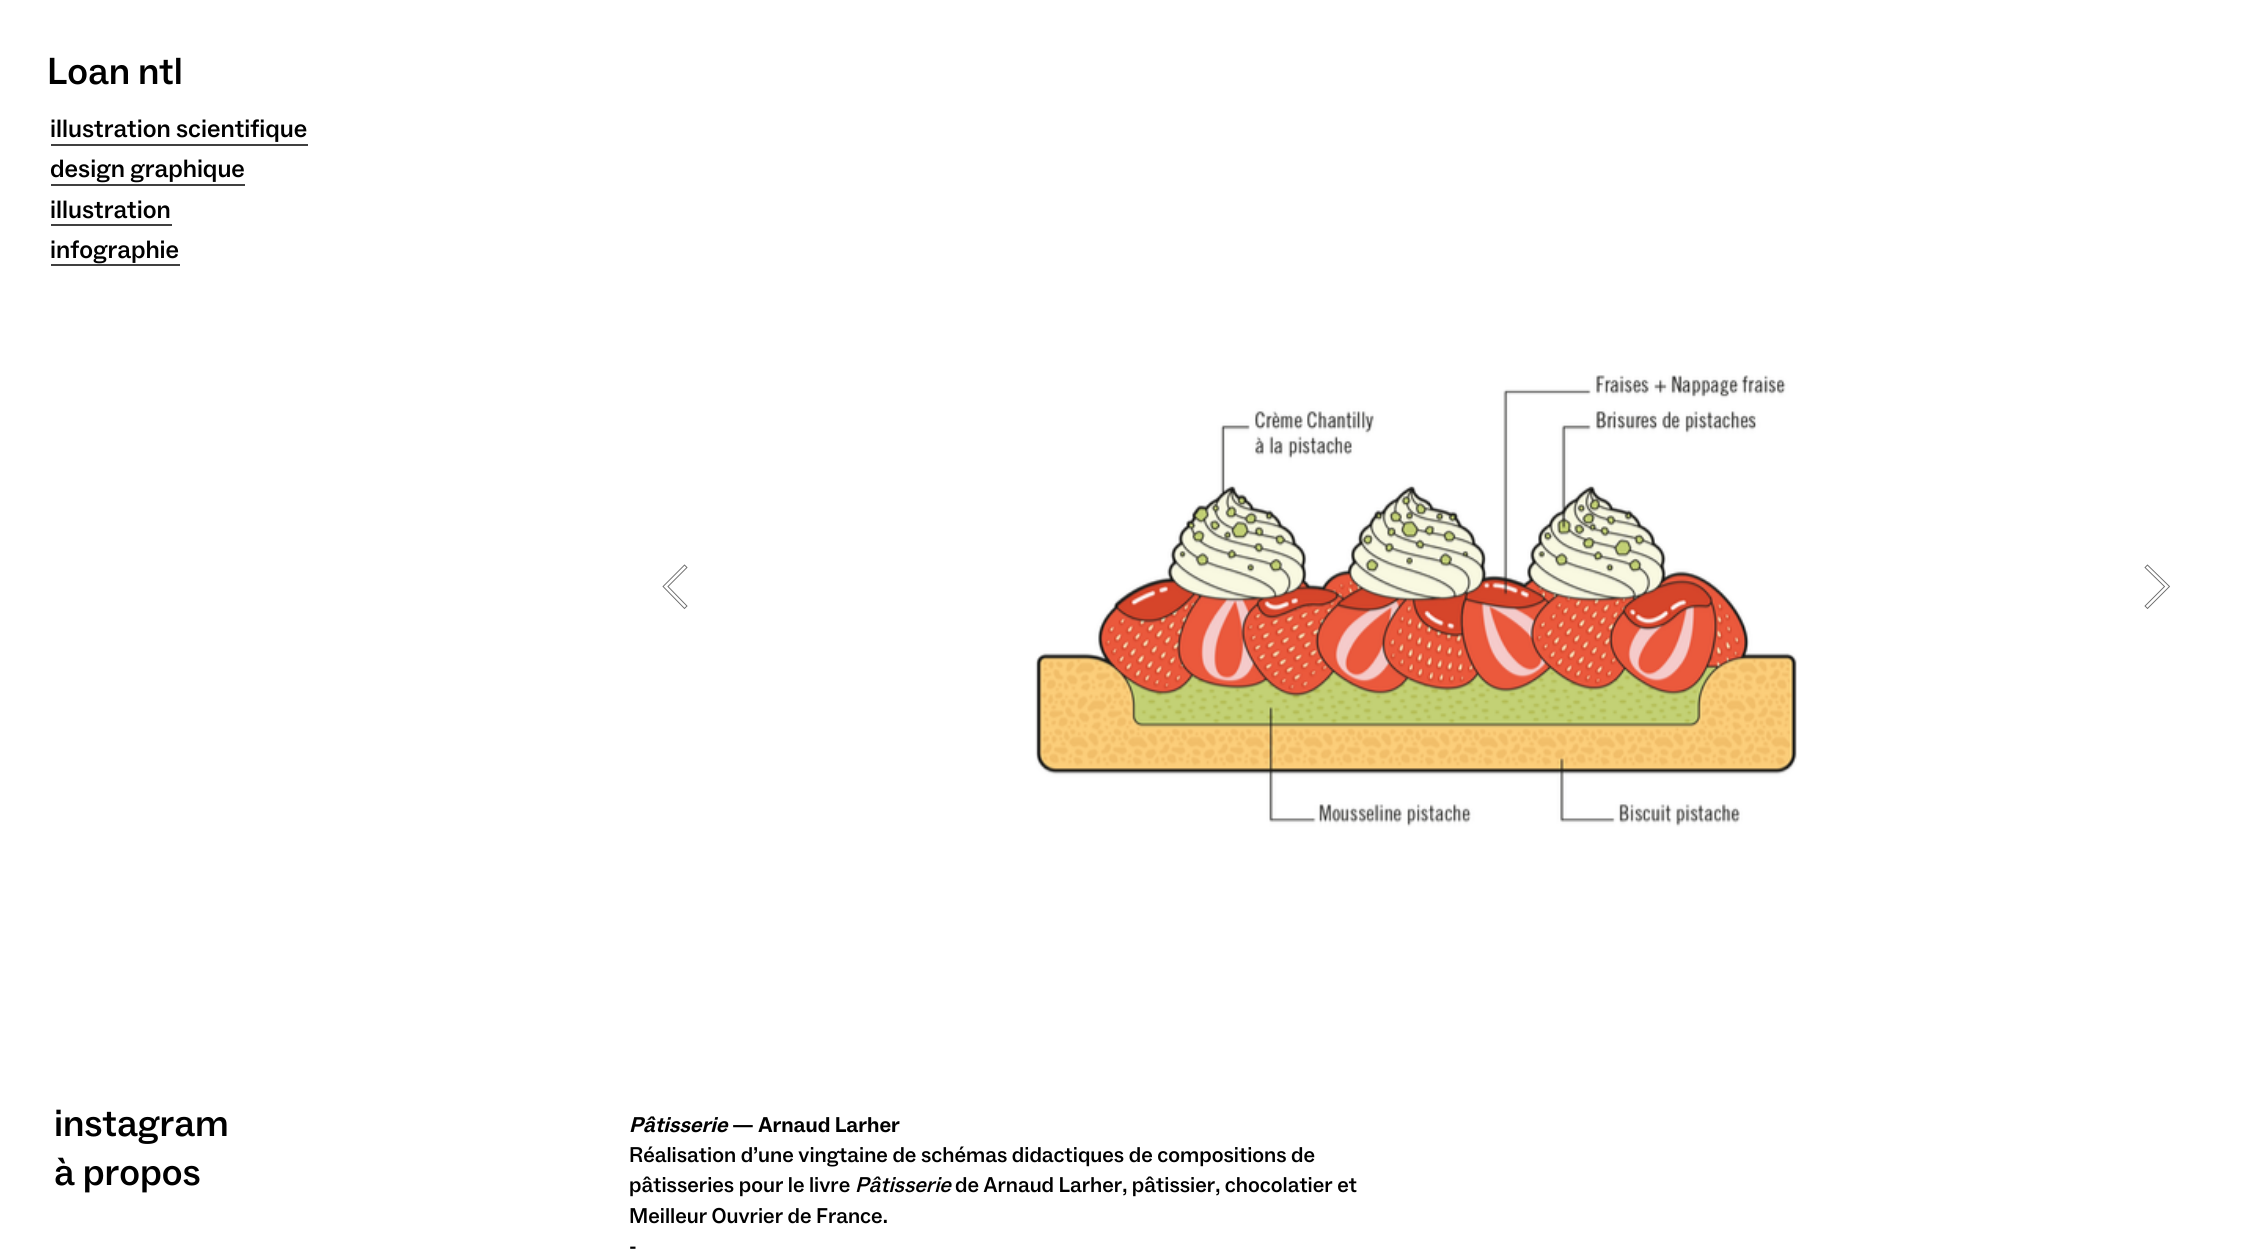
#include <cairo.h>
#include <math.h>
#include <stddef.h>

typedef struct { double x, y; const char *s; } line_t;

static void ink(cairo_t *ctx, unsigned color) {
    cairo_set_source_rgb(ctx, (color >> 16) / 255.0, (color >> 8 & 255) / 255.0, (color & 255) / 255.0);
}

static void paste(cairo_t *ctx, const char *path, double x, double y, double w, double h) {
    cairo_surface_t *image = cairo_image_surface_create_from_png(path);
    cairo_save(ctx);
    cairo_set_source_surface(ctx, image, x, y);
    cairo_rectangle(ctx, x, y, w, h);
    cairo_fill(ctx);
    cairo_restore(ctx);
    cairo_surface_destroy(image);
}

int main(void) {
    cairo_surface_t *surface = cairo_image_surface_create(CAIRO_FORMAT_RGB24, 2264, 1251);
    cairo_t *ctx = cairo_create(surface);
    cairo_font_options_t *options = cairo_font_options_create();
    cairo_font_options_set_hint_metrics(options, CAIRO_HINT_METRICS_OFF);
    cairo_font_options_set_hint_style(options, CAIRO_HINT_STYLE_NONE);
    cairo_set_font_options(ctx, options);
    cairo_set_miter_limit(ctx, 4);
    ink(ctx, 0xFFFFFF);
    cairo_paint(ctx);
    cairo_select_font_face(ctx, "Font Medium", CAIRO_FONT_SLANT_NORMAL, CAIRO_FONT_WEIGHT_NORMAL);
    cairo_set_font_size(ctx, 38);
    ink(ctx, 0x000000);
    cairo_move_to(ctx, 47, 84);
    cairo_show_text(ctx, "Loan ntl");
    cairo_set_font_size(ctx, 25.25);
    cairo_move_to(ctx, 50, 137);
    cairo_show_text(ctx, "illustration scientifique");
    ink(ctx, 0x404040);
    cairo_rectangle(ctx, 51, 144, 257, 2);
    cairo_fill(ctx);
    ink(ctx, 0x000000);
    cairo_move_to(ctx, 50, 177);
    cairo_show_text(ctx, "design graphique");
    ink(ctx, 0x404040);
    cairo_rectangle(ctx, 51, 184, 194, 2);
    cairo_fill(ctx);
    ink(ctx, 0x000000);
    cairo_move_to(ctx, 50, 218);
    cairo_show_text(ctx, "illustration");
    ink(ctx, 0x404040);
    cairo_rectangle(ctx, 51, 224, 121, 2);
    cairo_fill(ctx);
    ink(ctx, 0x000000);
    cairo_move_to(ctx, 50, 258);
    cairo_show_text(ctx, "infographie");
    ink(ctx, 0x404040);
    cairo_rectangle(ctx, 51, 264, 129, 2);
    cairo_fill(ctx);
    cairo_set_font_size(ctx, 38);
    ink(ctx, 0x000000);
    cairo_move_to(ctx, 54, 1136);
    cairo_show_text(ctx, "instagram");
    cairo_move_to(ctx, 54, 1185);
    cairo_show_text(ctx, "à propos");
    cairo_new_path(ctx);
    cairo_move_to(ctx, 684.5, 606);
    cairo_line_to(ctx, 665.5, 586.5);
    cairo_line_to(ctx, 684.5, 567.5);
    ink(ctx, 0x666666);
    cairo_set_line_width(ctx, 4.4);
    cairo_set_line_cap(ctx, CAIRO_LINE_CAP_SQUARE);
    cairo_stroke(ctx);
    cairo_new_path(ctx);
    cairo_move_to(ctx, 684.5, 606);
    cairo_line_to(ctx, 665.5, 586.5);
    cairo_line_to(ctx, 684.5, 567.5);
    ink(ctx, 0xFFFFFF);
    cairo_set_line_width(ctx, 2.6);
    cairo_stroke(ctx);
    paste(ctx, "media/1.png", 1035, 375, 762, 452);
    cairo_new_path(ctx);
    cairo_move_to(ctx, 2147.5, 606);
    cairo_line_to(ctx, 2167, 586.5);
    cairo_line_to(ctx, 2147.5, 567.5);
    ink(ctx, 0x666666);
    cairo_set_line_width(ctx, 4.4);
    cairo_stroke(ctx);
    cairo_new_path(ctx);
    cairo_move_to(ctx, 2147.5, 606);
    cairo_line_to(ctx, 2167, 586.5);
    cairo_line_to(ctx, 2147.5, 567.5);
    ink(ctx, 0xFFFFFF);
    cairo_set_line_width(ctx, 2.6);
    cairo_stroke(ctx);
    cairo_select_font_face(ctx, "Font", CAIRO_FONT_SLANT_ITALIC, CAIRO_FONT_WEIGHT_BOLD);
    cairo_set_font_size(ctx, 21.6);
    ink(ctx, 0x000000);
    cairo_move_to(ctx, 629, 1132);
    cairo_show_text(ctx, "Pâtisserie");
    cairo_select_font_face(ctx, "Font", CAIRO_FONT_SLANT_NORMAL, CAIRO_FONT_WEIGHT_BOLD);
    cairo_move_to(ctx, 732, 1132);
    cairo_show_text(ctx, "— Arnaud Larher");
    cairo_select_font_face(ctx, "Font Medium", CAIRO_FONT_SLANT_NORMAL, CAIRO_FONT_WEIGHT_NORMAL);
    cairo_move_to(ctx, 629, 1162);
    cairo_show_text(ctx, "Réalisation d’une vingtaine de schémas didactiques de compositions de");
    cairo_move_to(ctx, 629, 1192);
    cairo_show_text(ctx, "pâtisseries pour le livre");
    cairo_select_font_face(ctx, "Font Medium", CAIRO_FONT_SLANT_ITALIC, CAIRO_FONT_WEIGHT_NORMAL);
    cairo_move_to(ctx, 855, 1192);
    cairo_show_text(ctx, "Pâtisserie");
    cairo_select_font_face(ctx, "Font Medium", CAIRO_FONT_SLANT_NORMAL, CAIRO_FONT_WEIGHT_NORMAL);
    {
        static const line_t items[] = {
            {955, 1192, "de Arnaud Larher, pâtissier, chocolatier et"},
            {629, 1223, "Meilleur Ouvrier de France."},
            {629, 1253, "-"},
        };
        for (size_t i = 0; i < sizeof items / sizeof *items; i++) {
            cairo_move_to(ctx, items[i].x, items[i].y);
            cairo_show_text(ctx, items[i].s);
        }
    }
    cairo_surface_write_to_png(surface, "image.png");
    cairo_font_options_destroy(options);
    cairo_destroy(ctx);
    cairo_surface_destroy(surface);
    return 0;
}
